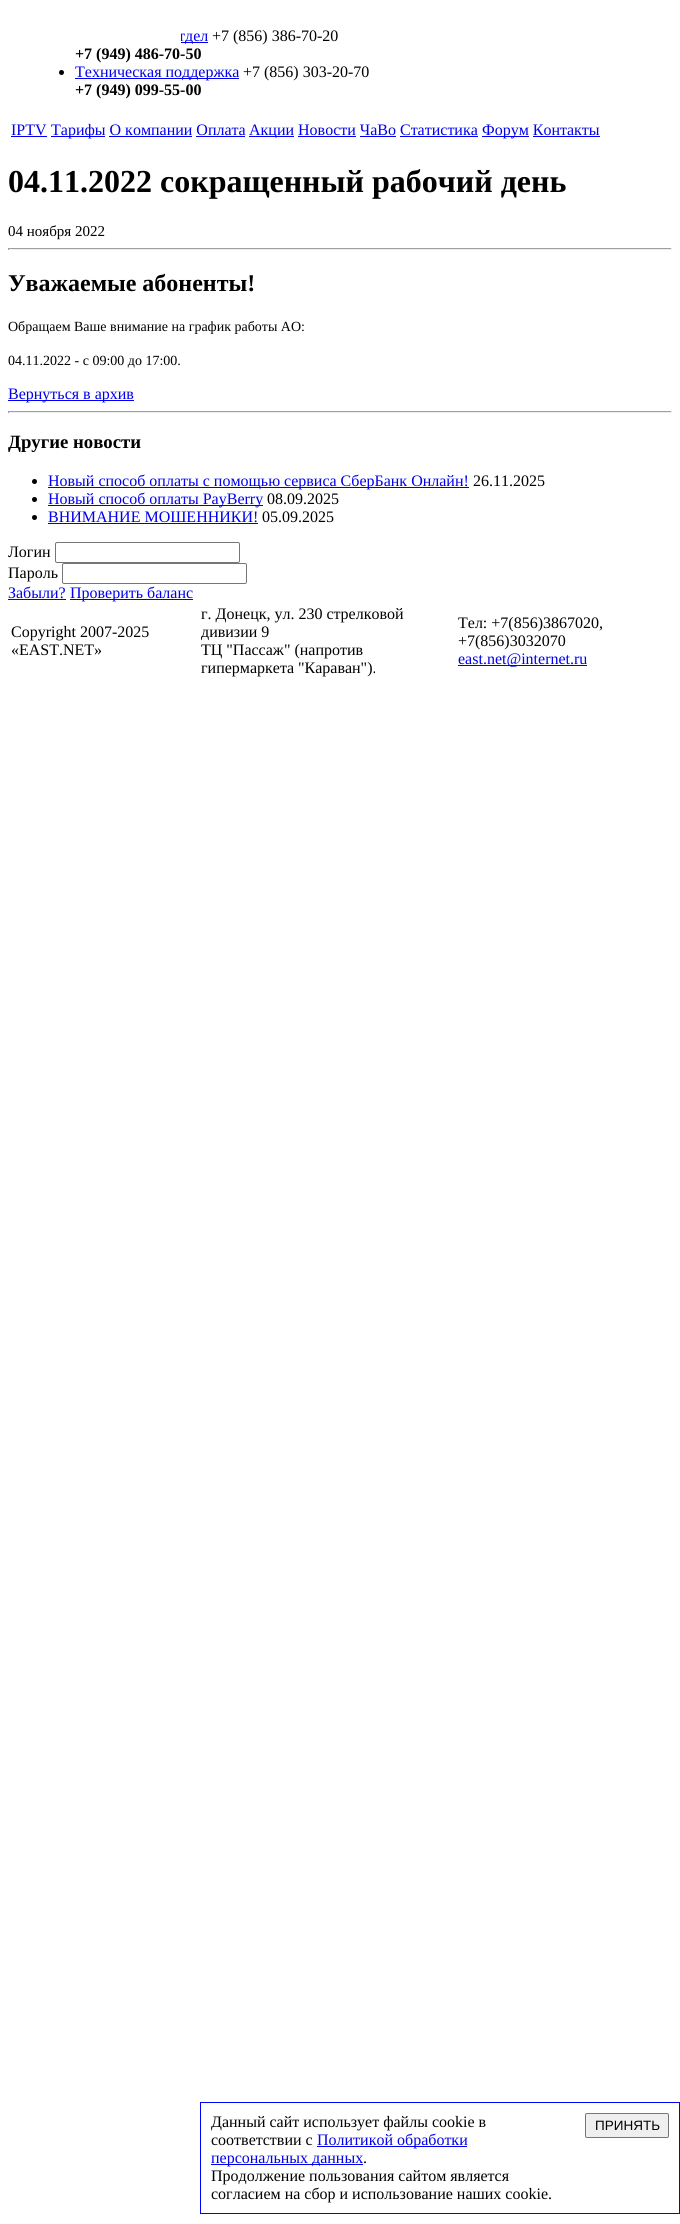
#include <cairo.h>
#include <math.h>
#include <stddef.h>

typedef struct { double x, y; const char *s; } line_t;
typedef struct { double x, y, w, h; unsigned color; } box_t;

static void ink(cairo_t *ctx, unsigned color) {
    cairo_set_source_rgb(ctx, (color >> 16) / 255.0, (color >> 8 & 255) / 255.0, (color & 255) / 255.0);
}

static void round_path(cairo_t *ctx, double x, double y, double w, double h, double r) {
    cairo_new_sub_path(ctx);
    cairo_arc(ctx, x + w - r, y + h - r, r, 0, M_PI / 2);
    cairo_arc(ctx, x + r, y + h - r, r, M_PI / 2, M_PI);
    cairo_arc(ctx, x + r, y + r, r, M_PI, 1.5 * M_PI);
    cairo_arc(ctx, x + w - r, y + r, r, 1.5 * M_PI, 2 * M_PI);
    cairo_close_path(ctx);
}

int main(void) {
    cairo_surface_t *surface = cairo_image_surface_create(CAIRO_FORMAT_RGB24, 680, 2224);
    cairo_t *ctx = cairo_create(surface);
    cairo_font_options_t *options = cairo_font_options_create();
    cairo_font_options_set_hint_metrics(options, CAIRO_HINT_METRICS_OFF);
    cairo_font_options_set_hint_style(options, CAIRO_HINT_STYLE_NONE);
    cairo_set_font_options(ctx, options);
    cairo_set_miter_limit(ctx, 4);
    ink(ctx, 0xFFFFFF);
    cairo_paint(ctx);
    ink(ctx, 0x0000EE);
    cairo_rectangle(ctx, 181, 42, 27, 1);
    cairo_fill(ctx);
    cairo_select_font_face(ctx, "Liberation Serif", CAIRO_FONT_SLANT_NORMAL, CAIRO_FONT_WEIGHT_NORMAL);
    cairo_set_font_size(ctx, 16);
    cairo_move_to(ctx, 178, 41);
    cairo_show_text(ctx, "тдел");
    ink(ctx, 0x000000);
    cairo_move_to(ctx, 212, 41);
    cairo_show_text(ctx, "+7 (856) 386-70-20");
    cairo_select_font_face(ctx, "Liberation Serif", CAIRO_FONT_SLANT_NORMAL, CAIRO_FONT_WEIGHT_BOLD);
    cairo_move_to(ctx, 75, 59);
    cairo_show_text(ctx, "+7 (949) 486-70-50");
    cairo_new_path(ctx);
    cairo_arc(ctx, 61.5, 72.5, 2.5, 0, 2 * M_PI);
    cairo_fill(ctx);
    ink(ctx, 0x0000EE);
    cairo_rectangle(ctx, 75, 78, 164, 1);
    cairo_fill(ctx);
    cairo_select_font_face(ctx, "Liberation Serif", CAIRO_FONT_SLANT_NORMAL, CAIRO_FONT_WEIGHT_NORMAL);
    cairo_move_to(ctx, 75, 77);
    cairo_show_text(ctx, "Техническая поддержка");
    ink(ctx, 0x000000);
    cairo_move_to(ctx, 243, 77);
    cairo_show_text(ctx, "+7 (856) 303-20-70");
    cairo_select_font_face(ctx, "Liberation Serif", CAIRO_FONT_SLANT_NORMAL, CAIRO_FONT_WEIGHT_BOLD);
    cairo_move_to(ctx, 75, 95);
    cairo_show_text(ctx, "+7 (949) 099-55-00");
    ink(ctx, 0xFFFFFF);
    cairo_rectangle(ctx, 178, 33, 3, 8);
    cairo_fill(ctx);
    cairo_select_font_face(ctx, "Liberation Serif", CAIRO_FONT_SLANT_NORMAL, CAIRO_FONT_WEIGHT_NORMAL);
    ink(ctx, 0x0000EE);
    cairo_move_to(ctx, 11, 135);
    cairo_show_text(ctx, "IPTV");
    cairo_rectangle(ctx, 11, 136, 36, 1);
    cairo_fill(ctx);
    cairo_rectangle(ctx, 51, 136, 54, 1);
    cairo_fill(ctx);
    cairo_move_to(ctx, 51, 135);
    cairo_show_text(ctx, "Тарифы О компании Оплата");
    cairo_rectangle(ctx, 249, 136, 45, 1);
    cairo_fill(ctx);
    cairo_move_to(ctx, 249, 135);
    cairo_show_text(ctx, "Акции Новости ЧаВо Статистика");
    cairo_rectangle(ctx, 482, 136, 47, 1);
    cairo_fill(ctx);
    cairo_move_to(ctx, 482, 135);
    cairo_show_text(ctx, "Форум Контакты");
    {
        static const box_t items[] = {
            {109, 136, 83, 1, 0x0000EE},
            {196, 136, 49, 1, 0x0000EE},
            {298, 136, 58, 1, 0x0000EE},
            {360, 136, 36, 1, 0x0000EE},
            {400, 136, 78, 1, 0x0000EE},
            {533, 136, 67, 1, 0x0000EE},
        };
        for (size_t i = 0; i < sizeof items / sizeof *items; i++) {
            ink(ctx, items[i].color);
            cairo_rectangle(ctx, items[i].x, items[i].y, items[i].w, items[i].h);
            cairo_fill(ctx);
        }
    }
    cairo_select_font_face(ctx, "Liberation Serif", CAIRO_FONT_SLANT_NORMAL, CAIRO_FONT_WEIGHT_BOLD);
    cairo_set_font_size(ctx, 32);
    ink(ctx, 0x000000);
    cairo_move_to(ctx, 8, 192);
    cairo_show_text(ctx, "04.11.2022 сокращенный рабочий день");
    cairo_select_font_face(ctx, "Liberation Serif", CAIRO_FONT_SLANT_NORMAL, CAIRO_FONT_WEIGHT_NORMAL);
    cairo_set_font_size(ctx, 15);
    cairo_move_to(ctx, 8, 236);
    cairo_show_text(ctx, "04 ноября 2022");
    {
        static const box_t items[] = {
            {8, 248, 664, 1, 0x9F9F9F},
            {671, 248, 1, 2, 0xEEEEEE},
            {8, 249, 664, 1, 0xEEEEEE},
            {8, 248, 1, 2, 0x9F9F9F},
        };
        for (size_t i = 0; i < sizeof items / sizeof *items; i++) {
            ink(ctx, items[i].color);
            cairo_rectangle(ctx, items[i].x, items[i].y, items[i].w, items[i].h);
            cairo_fill(ctx);
        }
    }
    cairo_select_font_face(ctx, "Liberation Serif", CAIRO_FONT_SLANT_NORMAL, CAIRO_FONT_WEIGHT_BOLD);
    cairo_set_font_size(ctx, 24);
    ink(ctx, 0x000000);
    cairo_move_to(ctx, 8, 291);
    cairo_show_text(ctx, "Уважаемые абоненты!");
    cairo_select_font_face(ctx, "Liberation Serif", CAIRO_FONT_SLANT_NORMAL, CAIRO_FONT_WEIGHT_NORMAL);
    cairo_set_font_size(ctx, 14);
    cairo_move_to(ctx, 8, 331);
    cairo_show_text(ctx, "Обращаем Ваше внимание на график работы АО:");
    cairo_move_to(ctx, 8, 365);
    cairo_show_text(ctx, "04.11.2022 - с 09:00 до 17:00.");
    ink(ctx, 0x0000EE);
    cairo_rectangle(ctx, 8, 400, 126, 1);
    cairo_fill(ctx);
    cairo_set_font_size(ctx, 16);
    cairo_move_to(ctx, 8, 399);
    cairo_show_text(ctx, "Вернуться в архив");
    {
        static const box_t items[] = {
            {8, 411, 664, 1, 0x9F9F9F},
            {671, 411, 1, 2, 0xEEEEEE},
            {8, 412, 664, 1, 0xEEEEEE},
            {8, 411, 1, 2, 0x9F9F9F},
        };
        for (size_t i = 0; i < sizeof items / sizeof *items; i++) {
            ink(ctx, items[i].color);
            cairo_rectangle(ctx, items[i].x, items[i].y, items[i].w, items[i].h);
            cairo_fill(ctx);
        }
    }
    cairo_select_font_face(ctx, "Liberation Serif", CAIRO_FONT_SLANT_NORMAL, CAIRO_FONT_WEIGHT_BOLD);
    cairo_set_font_size(ctx, 18.75);
    ink(ctx, 0x000000);
    cairo_move_to(ctx, 8, 448);
    cairo_show_text(ctx, "Другие новости");
    cairo_new_path(ctx);
    cairo_arc(ctx, 34.5, 481.5, 2.5, 0, 2 * M_PI);
    cairo_fill(ctx);
    ink(ctx, 0x0000EE);
    cairo_rectangle(ctx, 48, 487, 421, 1);
    cairo_fill(ctx);
    cairo_select_font_face(ctx, "Liberation Serif", CAIRO_FONT_SLANT_NORMAL, CAIRO_FONT_WEIGHT_NORMAL);
    cairo_set_font_size(ctx, 16);
    cairo_move_to(ctx, 48, 486);
    cairo_show_text(ctx, "Новый способ оплаты с помощью сервиса СберБанк Онлайн!");
    ink(ctx, 0x000000);
    cairo_move_to(ctx, 473, 486);
    cairo_show_text(ctx, "26.11.2025");
    cairo_new_path(ctx);
    cairo_arc(ctx, 34.5, 499.5, 2.5, 0, 2 * M_PI);
    cairo_fill(ctx);
    ink(ctx, 0x0000EE);
    cairo_rectangle(ctx, 48, 505, 215, 1);
    cairo_fill(ctx);
    cairo_move_to(ctx, 48, 504);
    cairo_show_text(ctx, "Новый способ оплаты PayBerry");
    ink(ctx, 0x000000);
    cairo_move_to(ctx, 267, 504);
    cairo_show_text(ctx, "08.09.2025");
    cairo_new_path(ctx);
    cairo_arc(ctx, 34.5, 517.5, 2.5, 0, 2 * M_PI);
    cairo_fill(ctx);
    ink(ctx, 0x0000EE);
    cairo_move_to(ctx, 48, 522);
    cairo_show_text(ctx, "ВНИМАНИЕ МОШЕННИКИ!");
    cairo_rectangle(ctx, 48, 523, 210, 1);
    cairo_fill(ctx);
    ink(ctx, 0x000000);
    cairo_move_to(ctx, 262, 522);
    cairo_show_text(ctx, "05.09.2025");
    cairo_move_to(ctx, 8, 557);
    cairo_show_text(ctx, "Логин");
    round_path(ctx, 55.5, 542.5, 184, 20, 1.5);
    ink(ctx, 0x767676);
    cairo_set_line_width(ctx, 1);
    cairo_stroke(ctx);
    ink(ctx, 0x000000);
    cairo_move_to(ctx, 8, 578);
    cairo_show_text(ctx, "Пароль");
    round_path(ctx, 62.5, 563.5, 184, 20, 1.5);
    ink(ctx, 0x767676);
    cairo_stroke(ctx);
    ink(ctx, 0x0000EE);
    cairo_move_to(ctx, 8, 598);
    cairo_show_text(ctx, "Забыли?");
    cairo_rectangle(ctx, 8, 599, 58, 1);
    cairo_fill(ctx);
    cairo_rectangle(ctx, 70, 599, 123, 1);
    cairo_fill(ctx);
    cairo_move_to(ctx, 70, 598);
    cairo_show_text(ctx, "Проверить баланс");
    ink(ctx, 0x000000);
    {
        static const line_t items[] = {
            {11, 637, "Copyright 2007-2025"},
            {11, 655, "«EAST.NET»"},
            {201, 619, "г. Донецк, ул. 230 стрелковой"},
            {201, 637, "дивизии 9"},
            {201, 655, "ТЦ \"Пассаж\" (напротив"},
            {201, 673, "гипермаркета \"Караван\")."},
            {458, 628, "Тел: +7(856)3867020,"},
            {458, 646, "+7(856)3032070"},
        };
        for (size_t i = 0; i < sizeof items / sizeof *items; i++) {
            cairo_move_to(ctx, items[i].x, items[i].y);
            cairo_show_text(ctx, items[i].s);
        }
    }
    ink(ctx, 0x0000EE);
    cairo_rectangle(ctx, 458, 665, 129, 1);
    cairo_fill(ctx);
    cairo_move_to(ctx, 458, 664);
    cairo_show_text(ctx, "east.net@internet.ru");
    cairo_rectangle(ctx, 200.5, 2102.5, 479, 111);
    ink(ctx, 0x0000FF);
    cairo_stroke(ctx);
    ink(ctx, 0x000000);
    cairo_move_to(ctx, 211, 2127);
    cairo_show_text(ctx, "Данный сайт использует файлы cookie в");
    cairo_move_to(ctx, 211, 2145);
    cairo_show_text(ctx, "соответствии с");
    ink(ctx, 0x0000EE);
    cairo_rectangle(ctx, 317, 2146, 150, 1);
    cairo_fill(ctx);
    cairo_move_to(ctx, 317, 2145);
    cairo_show_text(ctx, "Политикой обработки");
    cairo_rectangle(ctx, 211, 2164, 152, 1);
    cairo_fill(ctx);
    cairo_move_to(ctx, 211, 2163);
    cairo_show_text(ctx, "персональных данных");
    ink(ctx, 0x000000);
    {
        static const line_t items[] = {
            {363, 2163, "."},
            {211, 2181, "Продолжение пользования сайтом является"},
            {211, 2199, "согласием на сбор и использование наших cookie."},
        };
        for (size_t i = 0; i < sizeof items / sizeof *items; i++) {
            cairo_move_to(ctx, items[i].x, items[i].y);
            cairo_show_text(ctx, items[i].s);
        }
    }
    ink(ctx, 0xEFEFEF);
    round_path(ctx, 585.5, 2113.5, 83, 24, 1.5);
    cairo_fill_preserve(ctx);
    ink(ctx, 0x767676);
    cairo_stroke(ctx);
    cairo_select_font_face(ctx, "Liberation Sans", CAIRO_FONT_SLANT_NORMAL, CAIRO_FONT_WEIGHT_NORMAL);
    cairo_set_font_size(ctx, 13.5);
    ink(ctx, 0x000000);
    cairo_move_to(ctx, 595, 2130);
    cairo_show_text(ctx, "ПРИНЯТЬ");
    cairo_surface_write_to_png(surface, "image.png");
    cairo_font_options_destroy(options);
    cairo_destroy(ctx);
    cairo_surface_destroy(surface);
    return 0;
}
